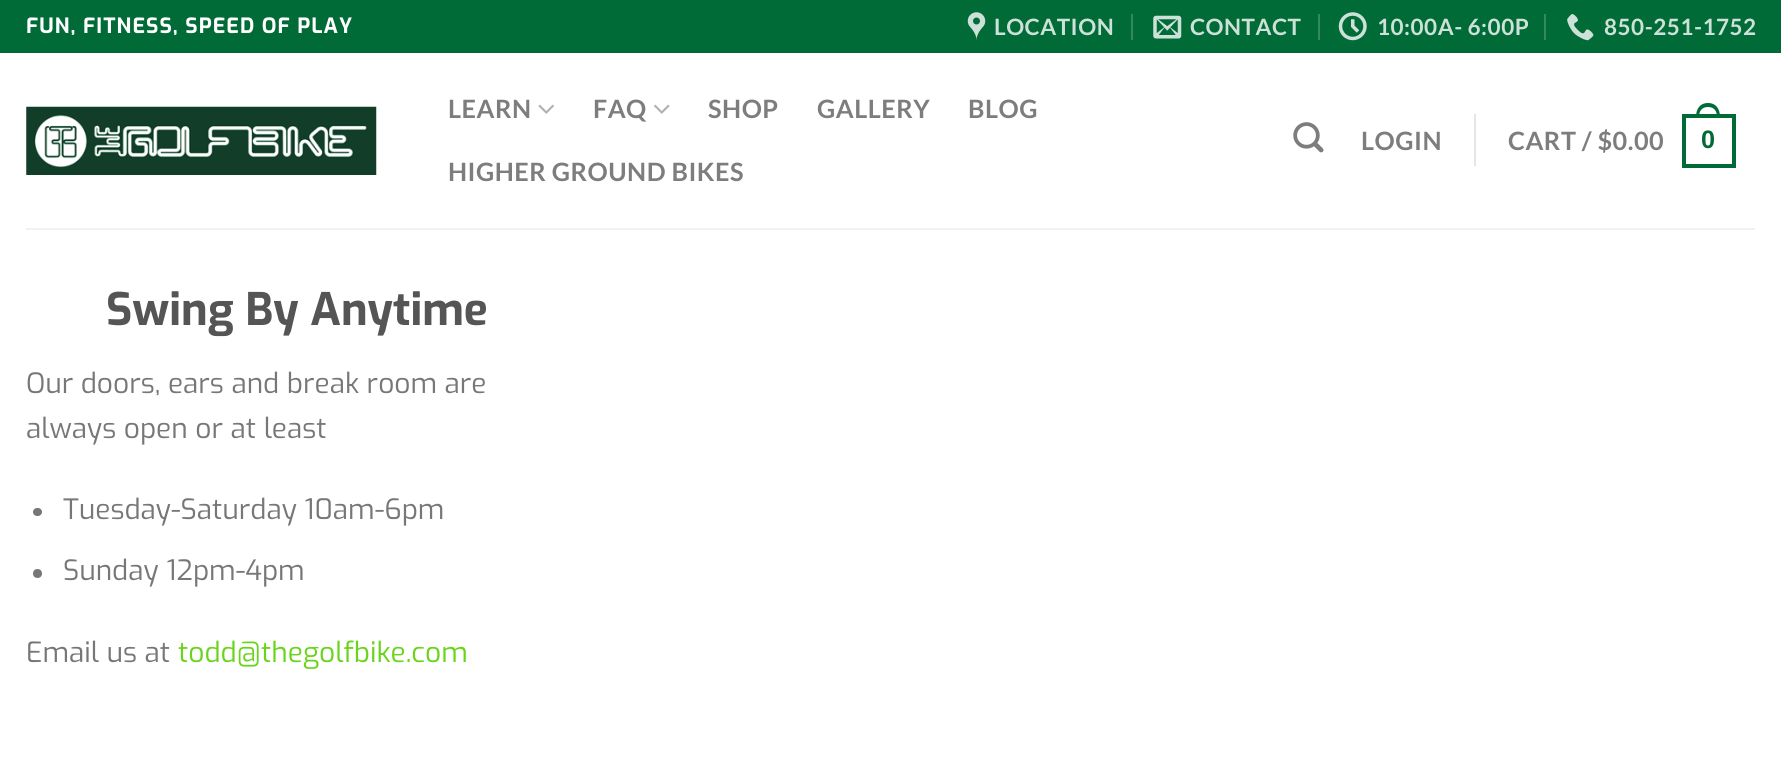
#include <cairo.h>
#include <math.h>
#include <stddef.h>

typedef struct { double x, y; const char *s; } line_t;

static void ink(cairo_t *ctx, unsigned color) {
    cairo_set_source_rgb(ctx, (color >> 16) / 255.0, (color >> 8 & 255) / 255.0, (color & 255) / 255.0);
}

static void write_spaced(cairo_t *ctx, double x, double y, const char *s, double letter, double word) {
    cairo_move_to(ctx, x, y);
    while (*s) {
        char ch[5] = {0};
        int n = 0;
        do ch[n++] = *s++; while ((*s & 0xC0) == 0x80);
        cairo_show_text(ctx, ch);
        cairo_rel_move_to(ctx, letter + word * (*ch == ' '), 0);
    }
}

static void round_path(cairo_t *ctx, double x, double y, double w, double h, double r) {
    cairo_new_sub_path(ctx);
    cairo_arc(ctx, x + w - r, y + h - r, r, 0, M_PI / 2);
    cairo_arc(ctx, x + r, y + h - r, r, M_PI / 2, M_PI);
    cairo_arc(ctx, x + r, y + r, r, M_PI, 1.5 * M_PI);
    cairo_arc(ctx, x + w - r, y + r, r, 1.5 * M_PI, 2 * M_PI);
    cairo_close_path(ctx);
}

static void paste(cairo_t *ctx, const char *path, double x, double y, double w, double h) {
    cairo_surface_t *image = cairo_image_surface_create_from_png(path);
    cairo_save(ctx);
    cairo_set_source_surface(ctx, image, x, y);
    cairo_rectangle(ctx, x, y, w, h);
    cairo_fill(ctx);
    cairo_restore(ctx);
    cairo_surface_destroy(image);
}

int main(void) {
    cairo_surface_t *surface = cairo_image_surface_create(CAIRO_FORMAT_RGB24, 1781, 762);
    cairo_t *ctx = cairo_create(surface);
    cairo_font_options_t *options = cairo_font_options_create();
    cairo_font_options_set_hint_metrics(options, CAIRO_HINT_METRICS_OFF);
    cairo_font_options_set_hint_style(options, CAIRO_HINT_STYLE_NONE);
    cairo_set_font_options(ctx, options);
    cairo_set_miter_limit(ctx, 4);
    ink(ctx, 0xFFFFFF);
    cairo_paint(ctx);
    ink(ctx, 0x006B37);
    cairo_rectangle(ctx, 0, 0, 1781, 53);
    cairo_fill(ctx);
    cairo_select_font_face(ctx, "Exo", CAIRO_FONT_SLANT_NORMAL, CAIRO_FONT_WEIGHT_BOLD);
    cairo_set_font_size(ctx, 21);
    ink(ctx, 0xFFFFFF);
    write_spaced(ctx, 26, 33, "FUN, FITNESS, SPEED OF PLAY", 1.05, 0);
    paste(ctx, "media/1.png", 967, 12, 19, 28);
    cairo_select_font_face(ctx, "Lato", CAIRO_FONT_SLANT_NORMAL, CAIRO_FONT_WEIGHT_BOLD);
    cairo_set_font_size(ctx, 22.5);
    ink(ctx, 0xCCE1D7);
    write_spaced(ctx, 994, 35, "LOCATION", 0.5, 0);
    ink(ctx, 0x33895F);
    cairo_rectangle(ctx, 1131, 14, 2, 26);
    cairo_fill(ctx);
    paste(ctx, "media/2.png", 1153, 15, 29, 24);
    ink(ctx, 0xCCE1D7);
    write_spaced(ctx, 1190, 35, "CONTACT", 0.5, 0);
    ink(ctx, 0x33895F);
    cairo_rectangle(ctx, 1318, 14, 2, 26);
    cairo_fill(ctx);
    paste(ctx, "media/3.png", 1338, 12, 29, 29);
    ink(ctx, 0xCCE1D7);
    write_spaced(ctx, 1377, 35, "10:00A- 6:00P", 0.5, 0);
    ink(ctx, 0x33895F);
    cairo_rectangle(ctx, 1544, 14, 2, 26);
    cairo_fill(ctx);
    paste(ctx, "media/4.png", 1567, 14, 27, 27);
    ink(ctx, 0xCCE1D7);
    write_spaced(ctx, 1604, 35, "850-251-1752", 0.5, 0);
    paste(ctx, "media/5.png", 26, 106, 351, 69);
    cairo_set_font_size(ctx, 25.25);
    ink(ctx, 0x7D7D7D);
    write_spaced(ctx, 448, 118, "LEARN", 0.5, 0);
    paste(ctx, "media/6.png", 538, 104, 16, 10);
    write_spaced(ctx, 593, 118, "FAQ", 0.5, 0);
    paste(ctx, "media/7.png", 654, 104, 16, 10);
    {
        static const line_t items[] = {
            {708, 118, "SHOP"},
            {817, 118, "GALLERY"},
            {968, 118, "BLOG"},
            {448, 181, "HIGHER GROUND BIKES"},
        };
        for (size_t i = 0; i < sizeof items / sizeof *items; i++) {
            write_spaced(ctx, items[i].x, items[i].y, items[i].s, 0.5, 0);
        }
    }
    paste(ctx, "media/8.png", 1293, 122, 31, 31);
    write_spaced(ctx, 1361, 150, "LOGIN", 0.5, 0);
    ink(ctx, 0xE6E6E6);
    cairo_rectangle(ctx, 1474, 114, 2, 52);
    cairo_fill(ctx);
    ink(ctx, 0x7D7D7D);
    write_spaced(ctx, 1508, 150, "CART / $0.00", 0.5, 0);
    cairo_rectangle(ctx, 1684, 116, 50, 50);
    ink(ctx, 0x006B37);
    cairo_set_line_width(ctx, 4);
    cairo_stroke(ctx);
    cairo_set_fill_rule(ctx, CAIRO_FILL_RULE_EVEN_ODD);
    cairo_new_path(ctx);
    cairo_move_to(ctx, 1708, 103);
    cairo_curve_to(ctx, 1716.5, 103, 1720, 109.5, 1720, 117);
    cairo_line_to(ctx, 1696, 117);
    cairo_curve_to(ctx, 1696, 109.5, 1699.5, 103, 1708, 103);
    cairo_close_path(ctx);
    cairo_move_to(ctx, 1708, 107);
    cairo_curve_to(ctx, 1714.5, 107, 1717, 111.5, 1717, 117);
    cairo_line_to(ctx, 1699, 117);
    cairo_curve_to(ctx, 1699, 111.5, 1701.5, 107, 1708, 107);
    cairo_close_path(ctx);
    cairo_fill(ctx);
    cairo_select_font_face(ctx, "Liberation Sans", CAIRO_FONT_SLANT_NORMAL, CAIRO_FONT_WEIGHT_BOLD);
    write_spaced(ctx, 1701, 148, "0", 0.5, 0);
    ink(ctx, 0xF1F1F1);
    cairo_rectangle(ctx, 26, 228, 1729, 2);
    cairo_fill(ctx);
    cairo_select_font_face(ctx, "Exo", CAIRO_FONT_SLANT_NORMAL, CAIRO_FONT_WEIGHT_BOLD);
    cairo_set_font_size(ctx, 44.75);
    ink(ctx, 0x555555);
    cairo_move_to(ctx, 106, 325);
    cairo_show_text(ctx, "Swing By Anytime");
    cairo_select_font_face(ctx, "Exo", CAIRO_FONT_SLANT_NORMAL, CAIRO_FONT_WEIGHT_NORMAL);
    cairo_set_font_size(ctx, 28);
    ink(ctx, 0x777777);
    cairo_move_to(ctx, 26, 393);
    cairo_show_text(ctx, "Our doors, ears and break room are");
    cairo_move_to(ctx, 26, 438);
    cairo_show_text(ctx, "always open or at least");
    round_path(ctx, 33, 508, 9, 8, 4);
    cairo_fill(ctx);
    cairo_move_to(ctx, 63, 519);
    cairo_show_text(ctx, "Tuesday-Saturday 10am-6pm");
    cairo_new_path(ctx);
    cairo_arc(ctx, 37.5, 573.5, 4.5, 0, 2 * M_PI);
    cairo_fill(ctx);
    cairo_move_to(ctx, 63, 580);
    cairo_show_text(ctx, "Sunday 12pm-4pm");
    cairo_move_to(ctx, 26, 662);
    cairo_show_text(ctx, "Email us at");
    ink(ctx, 0x68D51A);
    cairo_move_to(ctx, 178, 662);
    cairo_show_text(ctx, "todd@thegolfbike.com");
    cairo_surface_write_to_png(surface, "image.png");
    cairo_font_options_destroy(options);
    cairo_destroy(ctx);
    cairo_surface_destroy(surface);
    return 0;
}
